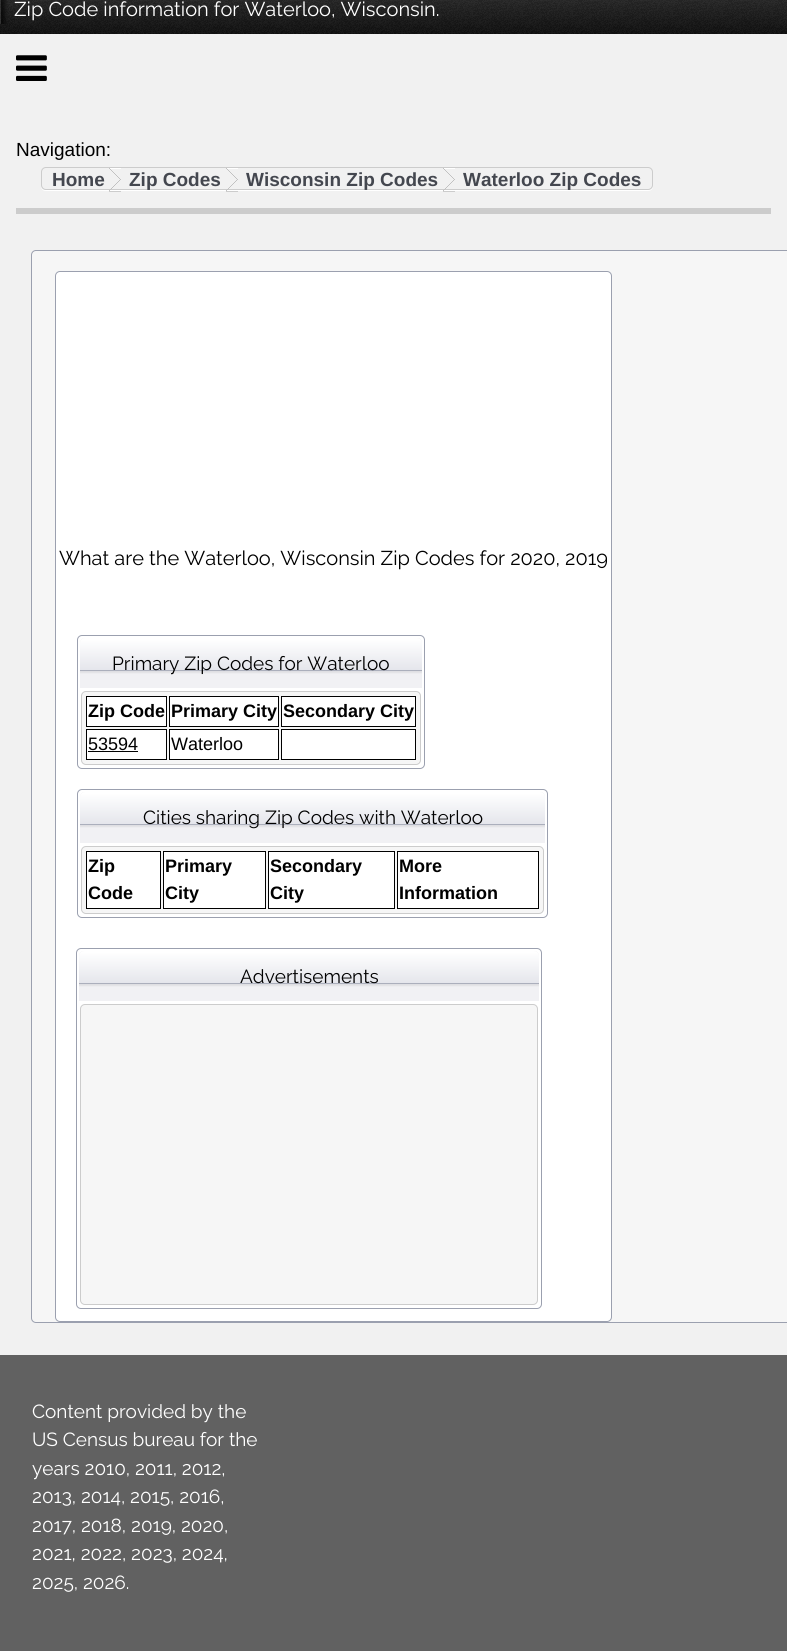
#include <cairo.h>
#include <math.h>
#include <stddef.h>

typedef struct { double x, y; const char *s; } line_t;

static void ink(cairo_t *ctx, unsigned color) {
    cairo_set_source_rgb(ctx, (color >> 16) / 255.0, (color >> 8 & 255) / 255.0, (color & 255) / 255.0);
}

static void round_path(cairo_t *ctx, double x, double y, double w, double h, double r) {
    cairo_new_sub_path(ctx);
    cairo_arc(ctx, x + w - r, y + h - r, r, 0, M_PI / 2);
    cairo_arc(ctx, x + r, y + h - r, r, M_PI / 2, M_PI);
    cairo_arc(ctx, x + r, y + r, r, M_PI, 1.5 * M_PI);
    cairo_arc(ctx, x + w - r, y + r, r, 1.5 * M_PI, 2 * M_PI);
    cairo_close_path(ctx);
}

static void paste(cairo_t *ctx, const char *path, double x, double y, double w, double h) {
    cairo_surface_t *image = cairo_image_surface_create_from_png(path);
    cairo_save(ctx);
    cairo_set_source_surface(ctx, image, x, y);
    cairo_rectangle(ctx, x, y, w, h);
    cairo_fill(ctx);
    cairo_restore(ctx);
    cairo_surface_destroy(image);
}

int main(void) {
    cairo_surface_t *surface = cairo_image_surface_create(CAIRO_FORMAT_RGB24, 787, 1651);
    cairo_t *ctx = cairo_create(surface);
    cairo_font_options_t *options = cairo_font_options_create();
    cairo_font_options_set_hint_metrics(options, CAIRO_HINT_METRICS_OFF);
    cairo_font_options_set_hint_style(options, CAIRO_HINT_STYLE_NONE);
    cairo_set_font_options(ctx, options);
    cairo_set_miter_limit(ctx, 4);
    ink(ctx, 0xF1F1F1);
    cairo_paint(ctx);
    paste(ctx, "media/1.png", 0, 0, 787, 34);
    paste(ctx, "media/2.png", 0, 0, 15, 24);
    cairo_select_font_face(ctx, "Raleway Thin", CAIRO_FONT_SLANT_NORMAL, CAIRO_FONT_WEIGHT_NORMAL);
    cairo_set_font_size(ctx, 20);
    ink(ctx, 0xFFFFFF);
    cairo_move_to(ctx, 14, 16);
    cairo_show_text(ctx, "Zip Code information for Waterloo, Wisconsin.");
    paste(ctx, "media/3.png", 16, 55, 31, 26);
    ink(ctx, 0xCCCCCC);
    cairo_rectangle(ctx, 16, 208, 755, 6);
    cairo_fill(ctx);
    cairo_select_font_face(ctx, "Liberation Sans", CAIRO_FONT_SLANT_NORMAL, CAIRO_FONT_WEIGHT_NORMAL);
    cairo_set_font_size(ctx, 19);
    ink(ctx, 0x000000);
    cairo_move_to(ctx, 16, 156);
    cairo_show_text(ctx, "Navigation:");
    ink(ctx, 0xFFFFFF);
    cairo_new_path(ctx);
    cairo_move_to(ctx, 41, 185);
    cairo_line_to(ctx, 41, 186);
    cairo_curve_to(ctx, 41, 189, 43, 191, 46, 191);
    cairo_line_to(ctx, 648, 191);
    cairo_curve_to(ctx, 651, 191, 653, 189, 653, 186);
    cairo_line_to(ctx, 653, 185);
    cairo_curve_to(ctx, 653, 188, 651, 190, 648, 190);
    cairo_line_to(ctx, 46, 190);
    cairo_curve_to(ctx, 43, 190, 41, 188, 41, 185);
    cairo_close_path(ctx);
    cairo_fill(ctx);
    round_path(ctx, 41.5, 167.5, 611, 22, 4.5);
    ink(ctx, 0xCCCCCC);
    cairo_set_line_width(ctx, 1);
    cairo_stroke(ctx);
    cairo_select_font_face(ctx, "Liberation Sans", CAIRO_FONT_SLANT_NORMAL, CAIRO_FONT_WEIGHT_BOLD);
    ink(ctx, 0x44474F);
    cairo_move_to(ctx, 52, 186);
    cairo_show_text(ctx, "Home");
    paste(ctx, "media/4.png", 109, 168, 12, 24);
    cairo_move_to(ctx, 129, 186);
    cairo_show_text(ctx, "Zip Codes");
    paste(ctx, "media/4.png", 226, 168, 12, 24);
    cairo_move_to(ctx, 246, 186);
    cairo_show_text(ctx, "Wisconsin Zip Codes");
    paste(ctx, "media/4.png", 443, 168, 12, 24);
    cairo_move_to(ctx, 463, 186);
    cairo_show_text(ctx, "Waterloo Zip Codes");
    ink(ctx, 0xF6F6F6);
    round_path(ctx, 31.5, 250.5, 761, 1072, 4.5);
    cairo_fill_preserve(ctx);
    ink(ctx, 0x9BA0AF);
    cairo_stroke(ctx);
    ink(ctx, 0xFFFFFF);
    round_path(ctx, 55.5, 271.5, 556, 1050, 4.5);
    cairo_fill_preserve(ctx);
    ink(ctx, 0x9BA0AF);
    cairo_stroke(ctx);
    cairo_select_font_face(ctx, "Raleway Thin", CAIRO_FONT_SLANT_NORMAL, CAIRO_FONT_WEIGHT_NORMAL);
    cairo_set_font_size(ctx, 20);
    ink(ctx, 0x000000);
    cairo_move_to(ctx, 59, 565);
    cairo_show_text(ctx, "What are the Waterloo, Wisconsin Zip Codes for 2020, 2019");
    round_path(ctx, 77.5, 635.5, 347, 133, 4.5);
    ink(ctx, 0x9BA0AF);
    cairo_stroke(ctx);
    ink(ctx, 0xF1F1F4);
    cairo_new_path(ctx);
    cairo_move_to(ctx, 85, 638);
    cairo_line_to(ctx, 417, 638);
    cairo_curve_to(ctx, 420, 638, 422, 640, 422, 643);
    cairo_line_to(ctx, 422, 688);
    cairo_line_to(ctx, 80, 688);
    cairo_line_to(ctx, 80, 643);
    cairo_curve_to(ctx, 80, 640, 82, 638, 85, 638);
    cairo_close_path(ctx);
    cairo_fill(ctx);
    paste(ctx, "media/5.png", 80, 638, 342, 36);
    cairo_set_font_size(ctx, 19);
    ink(ctx, 0x000000);
    cairo_move_to(ctx, 112, 670);
    cairo_show_text(ctx, "Primary Zip Codes for Waterloo");
    ink(ctx, 0xF6F6F6);
    round_path(ctx, 81.5, 691.5, 339, 73, 4.5);
    cairo_fill_preserve(ctx);
    ink(ctx, 0xCCCCCC);
    cairo_stroke(ctx);
    ink(ctx, 0xFFFFFF);
    cairo_rectangle(ctx, 86.5, 696.5, 80, 30);
    cairo_fill_preserve(ctx);
    ink(ctx, 0x000000);
    cairo_stroke(ctx);
    cairo_select_font_face(ctx, "Liberation Sans", CAIRO_FONT_SLANT_NORMAL, CAIRO_FONT_WEIGHT_BOLD);
    cairo_set_font_size(ctx, 18);
    cairo_move_to(ctx, 88, 717);
    cairo_show_text(ctx, "Zip Code");
    ink(ctx, 0xFFFFFF);
    cairo_rectangle(ctx, 169.5, 696.5, 109, 30);
    cairo_fill_preserve(ctx);
    ink(ctx, 0x000000);
    cairo_stroke(ctx);
    cairo_move_to(ctx, 171, 717);
    cairo_show_text(ctx, "Primary City");
    ink(ctx, 0xFFFFFF);
    cairo_rectangle(ctx, 281.5, 696.5, 134, 30);
    cairo_fill_preserve(ctx);
    ink(ctx, 0x000000);
    cairo_stroke(ctx);
    cairo_move_to(ctx, 283, 717);
    cairo_show_text(ctx, "Secondary City");
    ink(ctx, 0xFFFFFF);
    cairo_rectangle(ctx, 86.5, 729.5, 80, 30);
    cairo_fill_preserve(ctx);
    ink(ctx, 0x000000);
    cairo_stroke(ctx);
    cairo_select_font_face(ctx, "Liberation Sans", CAIRO_FONT_SLANT_NORMAL, CAIRO_FONT_WEIGHT_NORMAL);
    cairo_move_to(ctx, 88, 750);
    cairo_show_text(ctx, "53594");
    cairo_rectangle(ctx, 88, 751, 50, 1);
    cairo_fill(ctx);
    ink(ctx, 0xFFFFFF);
    cairo_rectangle(ctx, 169.5, 729.5, 109, 30);
    cairo_fill_preserve(ctx);
    ink(ctx, 0x000000);
    cairo_stroke(ctx);
    cairo_move_to(ctx, 171, 750);
    cairo_show_text(ctx, "Waterloo");
    ink(ctx, 0xFFFFFF);
    cairo_rectangle(ctx, 281.5, 729.5, 134, 30);
    cairo_fill_preserve(ctx);
    ink(ctx, 0x000000);
    cairo_stroke(ctx);
    round_path(ctx, 77.5, 789.5, 470, 128, 4.5);
    ink(ctx, 0x9BA0AF);
    cairo_stroke(ctx);
    ink(ctx, 0xF1F1F4);
    cairo_new_path(ctx);
    cairo_move_to(ctx, 85, 792);
    cairo_line_to(ctx, 540, 792);
    cairo_curve_to(ctx, 543, 792, 545, 794, 545, 797);
    cairo_line_to(ctx, 545, 843);
    cairo_line_to(ctx, 80, 843);
    cairo_line_to(ctx, 80, 797);
    cairo_curve_to(ctx, 80, 794, 82, 792, 85, 792);
    cairo_close_path(ctx);
    cairo_fill(ctx);
    paste(ctx, "media/6.png", 80, 792, 465, 36);
    cairo_select_font_face(ctx, "Raleway Thin", CAIRO_FONT_SLANT_NORMAL, CAIRO_FONT_WEIGHT_NORMAL);
    cairo_set_font_size(ctx, 19);
    ink(ctx, 0x000000);
    cairo_move_to(ctx, 143, 824);
    cairo_show_text(ctx, "Cities sharing Zip Codes with Waterloo");
    ink(ctx, 0xF6F6F6);
    round_path(ctx, 81.5, 846.5, 462, 67, 4.5);
    cairo_fill_preserve(ctx);
    ink(ctx, 0xCCCCCC);
    cairo_stroke(ctx);
    ink(ctx, 0xFFFFFF);
    cairo_rectangle(ctx, 86.5, 851.5, 74, 57);
    cairo_fill_preserve(ctx);
    ink(ctx, 0x000000);
    cairo_stroke(ctx);
    cairo_select_font_face(ctx, "Liberation Sans", CAIRO_FONT_SLANT_NORMAL, CAIRO_FONT_WEIGHT_BOLD);
    cairo_set_font_size(ctx, 18);
    cairo_move_to(ctx, 88, 872);
    cairo_show_text(ctx, "Zip");
    cairo_move_to(ctx, 88, 899);
    cairo_show_text(ctx, "Code");
    ink(ctx, 0xFFFFFF);
    cairo_rectangle(ctx, 163.5, 851.5, 102, 57);
    cairo_fill_preserve(ctx);
    ink(ctx, 0x000000);
    cairo_stroke(ctx);
    cairo_move_to(ctx, 165, 872);
    cairo_show_text(ctx, "Primary");
    cairo_move_to(ctx, 165, 899);
    cairo_show_text(ctx, "City");
    ink(ctx, 0xFFFFFF);
    cairo_rectangle(ctx, 268.5, 851.5, 126, 57);
    cairo_fill_preserve(ctx);
    ink(ctx, 0x000000);
    cairo_stroke(ctx);
    cairo_move_to(ctx, 270, 872);
    cairo_show_text(ctx, "Secondary");
    cairo_move_to(ctx, 270, 899);
    cairo_show_text(ctx, "City");
    ink(ctx, 0xFFFFFF);
    cairo_rectangle(ctx, 397.5, 851.5, 141, 57);
    cairo_fill_preserve(ctx);
    ink(ctx, 0x000000);
    cairo_stroke(ctx);
    cairo_move_to(ctx, 399, 872);
    cairo_show_text(ctx, "More");
    cairo_move_to(ctx, 399, 899);
    cairo_show_text(ctx, "Information");
    round_path(ctx, 76.5, 948.5, 465, 360, 4.5);
    ink(ctx, 0x9BA0AF);
    cairo_stroke(ctx);
    ink(ctx, 0xF1F1F4);
    cairo_new_path(ctx);
    cairo_move_to(ctx, 84, 951);
    cairo_line_to(ctx, 534, 951);
    cairo_curve_to(ctx, 537, 951, 539, 953, 539, 956);
    cairo_line_to(ctx, 539, 1001);
    cairo_line_to(ctx, 79, 1001);
    cairo_line_to(ctx, 79, 956);
    cairo_curve_to(ctx, 79, 953, 81, 951, 84, 951);
    cairo_close_path(ctx);
    cairo_fill(ctx);
    paste(ctx, "media/7.png", 79, 951, 460, 36);
    cairo_select_font_face(ctx, "Raleway Thin", CAIRO_FONT_SLANT_NORMAL, CAIRO_FONT_WEIGHT_NORMAL);
    cairo_set_font_size(ctx, 19);
    ink(ctx, 0x000000);
    cairo_move_to(ctx, 240, 983);
    cairo_show_text(ctx, "Advertisements");
    ink(ctx, 0xF6F6F6);
    round_path(ctx, 80.5, 1004.5, 457, 300, 4.5);
    cairo_fill_preserve(ctx);
    ink(ctx, 0xCCCCCC);
    cairo_stroke(ctx);
    ink(ctx, 0x616161);
    cairo_rectangle(ctx, 0, 1355, 787, 296);
    cairo_fill(ctx);
    ink(ctx, 0xFFFFFF);
    {
        static const line_t items[] = {
            {32, 1418, "Content provided by the"},
            {32, 1446, "US Census bureau for the"},
            {32, 1475, "years 2010, 2011, 2012,"},
            {32, 1503, "2013, 2014, 2015, 2016,"},
            {32, 1532, "2017, 2018, 2019, 2020,"},
            {32, 1560, "2021, 2022, 2023, 2024,"},
            {32, 1589, "2025, 2026."},
        };
        for (size_t i = 0; i < sizeof items / sizeof *items; i++) {
            cairo_move_to(ctx, items[i].x, items[i].y);
            cairo_show_text(ctx, items[i].s);
        }
    }
    cairo_surface_write_to_png(surface, "image.png");
    cairo_font_options_destroy(options);
    cairo_destroy(ctx);
    cairo_surface_destroy(surface);
    return 0;
}
